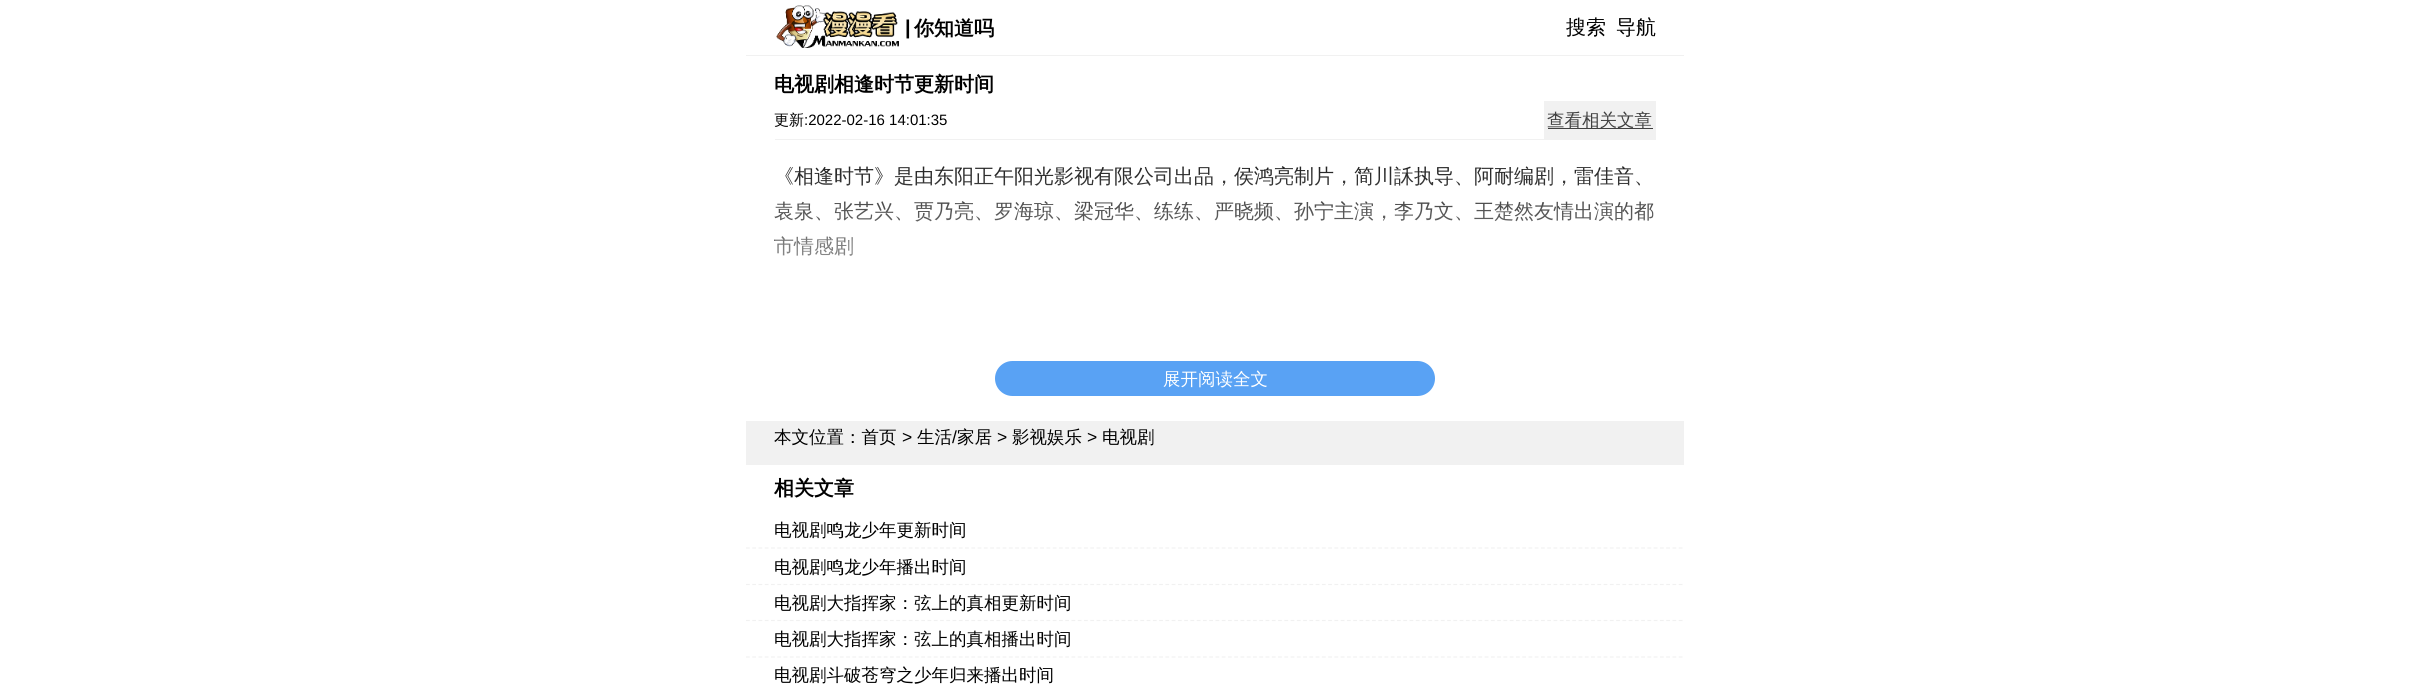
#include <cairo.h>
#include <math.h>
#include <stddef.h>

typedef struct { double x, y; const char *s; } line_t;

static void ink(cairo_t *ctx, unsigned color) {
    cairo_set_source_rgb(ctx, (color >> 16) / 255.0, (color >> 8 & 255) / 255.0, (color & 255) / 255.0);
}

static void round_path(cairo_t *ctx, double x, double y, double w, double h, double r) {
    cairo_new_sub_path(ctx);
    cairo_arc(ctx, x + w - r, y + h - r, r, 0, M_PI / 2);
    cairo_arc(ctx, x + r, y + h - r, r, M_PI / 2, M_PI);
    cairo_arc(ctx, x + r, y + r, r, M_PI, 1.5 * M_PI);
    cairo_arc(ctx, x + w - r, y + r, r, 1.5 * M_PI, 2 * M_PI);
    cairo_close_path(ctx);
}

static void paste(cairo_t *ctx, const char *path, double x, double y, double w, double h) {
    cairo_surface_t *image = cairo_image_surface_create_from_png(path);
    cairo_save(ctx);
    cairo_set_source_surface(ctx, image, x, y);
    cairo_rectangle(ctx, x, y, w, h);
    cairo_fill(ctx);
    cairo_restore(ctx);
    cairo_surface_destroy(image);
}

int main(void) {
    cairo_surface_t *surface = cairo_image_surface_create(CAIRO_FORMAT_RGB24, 2430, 687);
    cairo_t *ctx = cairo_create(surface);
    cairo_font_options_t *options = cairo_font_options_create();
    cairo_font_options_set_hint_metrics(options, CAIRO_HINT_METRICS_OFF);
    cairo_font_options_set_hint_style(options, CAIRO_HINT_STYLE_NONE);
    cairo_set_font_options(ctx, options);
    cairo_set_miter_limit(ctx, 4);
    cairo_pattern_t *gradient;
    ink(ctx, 0xFFFFFF);
    cairo_paint(ctx);
    ink(ctx, 0xF1F1F1);
    cairo_rectangle(ctx, 746, 55, 938, 1);
    cairo_fill(ctx);
    paste(ctx, "media/1.png", 776, 5, 123, 43);
    cairo_select_font_face(ctx, "Liberation Sans", CAIRO_FONT_SLANT_NORMAL, CAIRO_FONT_WEIGHT_BOLD);
    cairo_set_font_size(ctx, 20);
    ink(ctx, 0x000000);
    cairo_move_to(ctx, 905, 34);
    cairo_show_text(ctx, "|");
    cairo_select_font_face(ctx, "WenQuanYi Zen Hei", CAIRO_FONT_SLANT_NORMAL, CAIRO_FONT_WEIGHT_BOLD);
    cairo_move_to(ctx, 914, 35);
    cairo_show_text(ctx, "你知道吗");
    cairo_select_font_face(ctx, "WenQuanYi Zen Hei Medium", CAIRO_FONT_SLANT_NORMAL, CAIRO_FONT_WEIGHT_NORMAL);
    cairo_move_to(ctx, 1566, 34);
    cairo_show_text(ctx, "搜索");
    cairo_move_to(ctx, 1616, 34);
    cairo_show_text(ctx, "导航");
    cairo_select_font_face(ctx, "WenQuanYi Zen Hei", CAIRO_FONT_SLANT_NORMAL, CAIRO_FONT_WEIGHT_BOLD);
    cairo_move_to(ctx, 774, 91);
    cairo_show_text(ctx, "电视剧相逢时节更新时间");
    ink(ctx, 0xF1F1F1);
    cairo_rectangle(ctx, 775, 139, 881, 1);
    cairo_fill(ctx);
    cairo_select_font_face(ctx, "WenQuanYi Zen Hei Medium", CAIRO_FONT_SLANT_NORMAL, CAIRO_FONT_WEIGHT_NORMAL);
    cairo_set_font_size(ctx, 15);
    ink(ctx, 0x000000);
    cairo_move_to(ctx, 774, 125);
    cairo_show_text(ctx, "更新");
    cairo_select_font_face(ctx, "Liberation Sans", CAIRO_FONT_SLANT_NORMAL, CAIRO_FONT_WEIGHT_NORMAL);
    cairo_move_to(ctx, 804, 125);
    cairo_show_text(ctx, ":2022-02-16 14:01:35");
    ink(ctx, 0xF1F1F1);
    cairo_rectangle(ctx, 1544, 101, 112, 38);
    cairo_fill(ctx);
    ink(ctx, 0x404040);
    cairo_rectangle(ctx, 1548, 128, 105, 1);
    cairo_fill(ctx);
    cairo_select_font_face(ctx, "WenQuanYi Zen Hei Medium", CAIRO_FONT_SLANT_NORMAL, CAIRO_FONT_WEIGHT_NORMAL);
    cairo_set_font_size(ctx, 17.5);
    cairo_move_to(ctx, 1547, 126);
    cairo_show_text(ctx, "查看相关文章");
    cairo_set_font_size(ctx, 20);
    ink(ctx, 0x000000);
    {
        static const line_t items[] = {
            {774, 183, "《相逢时节》是由东阳正午阳光影视有限公司出品，侯鸿亮制片，简川訸执导、阿耐编剧，雷佳音、"},
            {774, 218, "袁泉、张艺兴、贾乃亮、罗海琼、梁冠华、练练、严晓频、孙宁主演，李乃文、王楚然友情出演的都"},
            {774, 253, "市情感剧"},
        };
        for (size_t i = 0; i < sizeof items / sizeof *items; i++) {
            cairo_move_to(ctx, items[i].x, items[i].y);
            cairo_show_text(ctx, items[i].s);
        }
    }
    gradient = cairo_pattern_create_linear(1216, 136, 1216, 361);
    cairo_pattern_add_color_stop_rgba(gradient, 0, 1, 1, 1, 0);
    cairo_pattern_add_color_stop_rgba(gradient, 1, 1, 1, 1, 1);
    cairo_set_source(ctx, gradient);
    cairo_pattern_destroy(gradient);
    cairo_rectangle(ctx, 775, 166, 880, 90);
    cairo_fill(ctx);
    ink(ctx, 0x59A2F4);
    round_path(ctx, 995, 361, 440, 35, 17.5);
    cairo_fill(ctx);
    cairo_set_font_size(ctx, 17.5);
    ink(ctx, 0xFFFFFF);
    cairo_move_to(ctx, 1163, 385);
    cairo_show_text(ctx, "展开阅读全文");
    ink(ctx, 0xF1F1F1);
    cairo_rectangle(ctx, 746, 421, 938, 44);
    cairo_fill(ctx);
    ink(ctx, 0x000000);
    cairo_move_to(ctx, 774, 443);
    cairo_show_text(ctx, "本文位置：首页");
    cairo_select_font_face(ctx, "Liberation Sans", CAIRO_FONT_SLANT_NORMAL, CAIRO_FONT_WEIGHT_NORMAL);
    cairo_move_to(ctx, 902, 443);
    cairo_show_text(ctx, ">");
    cairo_select_font_face(ctx, "WenQuanYi Zen Hei Medium", CAIRO_FONT_SLANT_NORMAL, CAIRO_FONT_WEIGHT_NORMAL);
    cairo_move_to(ctx, 917, 443);
    cairo_show_text(ctx, "生活");
    cairo_select_font_face(ctx, "Liberation Sans", CAIRO_FONT_SLANT_NORMAL, CAIRO_FONT_WEIGHT_NORMAL);
    cairo_move_to(ctx, 952, 443);
    cairo_show_text(ctx, "/");
    cairo_select_font_face(ctx, "WenQuanYi Zen Hei Medium", CAIRO_FONT_SLANT_NORMAL, CAIRO_FONT_WEIGHT_NORMAL);
    cairo_move_to(ctx, 957, 443);
    cairo_show_text(ctx, "家居");
    cairo_select_font_face(ctx, "Liberation Sans", CAIRO_FONT_SLANT_NORMAL, CAIRO_FONT_WEIGHT_NORMAL);
    cairo_move_to(ctx, 997, 443);
    cairo_show_text(ctx, ">");
    cairo_select_font_face(ctx, "WenQuanYi Zen Hei Medium", CAIRO_FONT_SLANT_NORMAL, CAIRO_FONT_WEIGHT_NORMAL);
    cairo_move_to(ctx, 1012, 443);
    cairo_show_text(ctx, "影视娱乐");
    cairo_select_font_face(ctx, "Liberation Sans", CAIRO_FONT_SLANT_NORMAL, CAIRO_FONT_WEIGHT_NORMAL);
    cairo_move_to(ctx, 1087, 443);
    cairo_show_text(ctx, ">");
    cairo_select_font_face(ctx, "WenQuanYi Zen Hei Medium", CAIRO_FONT_SLANT_NORMAL, CAIRO_FONT_WEIGHT_NORMAL);
    cairo_move_to(ctx, 1102, 443);
    cairo_show_text(ctx, "电视剧");
    cairo_select_font_face(ctx, "WenQuanYi Zen Hei", CAIRO_FONT_SLANT_NORMAL, CAIRO_FONT_WEIGHT_BOLD);
    cairo_set_font_size(ctx, 20);
    cairo_move_to(ctx, 774, 495);
    cairo_show_text(ctx, "相关文章");
    cairo_new_path(ctx);
    cairo_move_to(ctx, 746, 548);
    cairo_line_to(ctx, 1684, 548);
    ink(ctx, 0xF1F1F1);
    cairo_set_line_width(ctx, 1.2);
    cairo_set_dash(ctx, (double[]){3.75, 2.51}, 2, 0);
    cairo_stroke(ctx);
    cairo_select_font_face(ctx, "WenQuanYi Zen Hei Medium", CAIRO_FONT_SLANT_NORMAL, CAIRO_FONT_WEIGHT_NORMAL);
    cairo_set_font_size(ctx, 17.5);
    ink(ctx, 0x000000);
    cairo_move_to(ctx, 774, 536);
    cairo_show_text(ctx, "电视剧鸣龙少年更新时间");
    cairo_new_path(ctx);
    cairo_move_to(ctx, 746, 584.5);
    cairo_line_to(ctx, 1684, 584.5);
    ink(ctx, 0xF1F1F1);
    cairo_stroke(ctx);
    ink(ctx, 0x000000);
    cairo_move_to(ctx, 774, 573);
    cairo_show_text(ctx, "电视剧鸣龙少年播出时间");
    cairo_new_path(ctx);
    cairo_move_to(ctx, 746, 620.5);
    cairo_line_to(ctx, 1684, 620.5);
    ink(ctx, 0xF1F1F1);
    cairo_stroke(ctx);
    ink(ctx, 0x000000);
    cairo_move_to(ctx, 774, 609);
    cairo_show_text(ctx, "电视剧大指挥家：弦上的真相更新时间");
    cairo_new_path(ctx);
    cairo_move_to(ctx, 746, 657);
    cairo_line_to(ctx, 1684, 657);
    ink(ctx, 0xF1F1F1);
    cairo_stroke(ctx);
    ink(ctx, 0x000000);
    cairo_move_to(ctx, 774, 645);
    cairo_show_text(ctx, "电视剧大指挥家：弦上的真相播出时间");
    cairo_move_to(ctx, 774, 681);
    cairo_show_text(ctx, "电视剧斗破苍穹之少年归来播出时间");
    cairo_surface_write_to_png(surface, "image.png");
    cairo_font_options_destroy(options);
    cairo_destroy(ctx);
    cairo_surface_destroy(surface);
    return 0;
}
